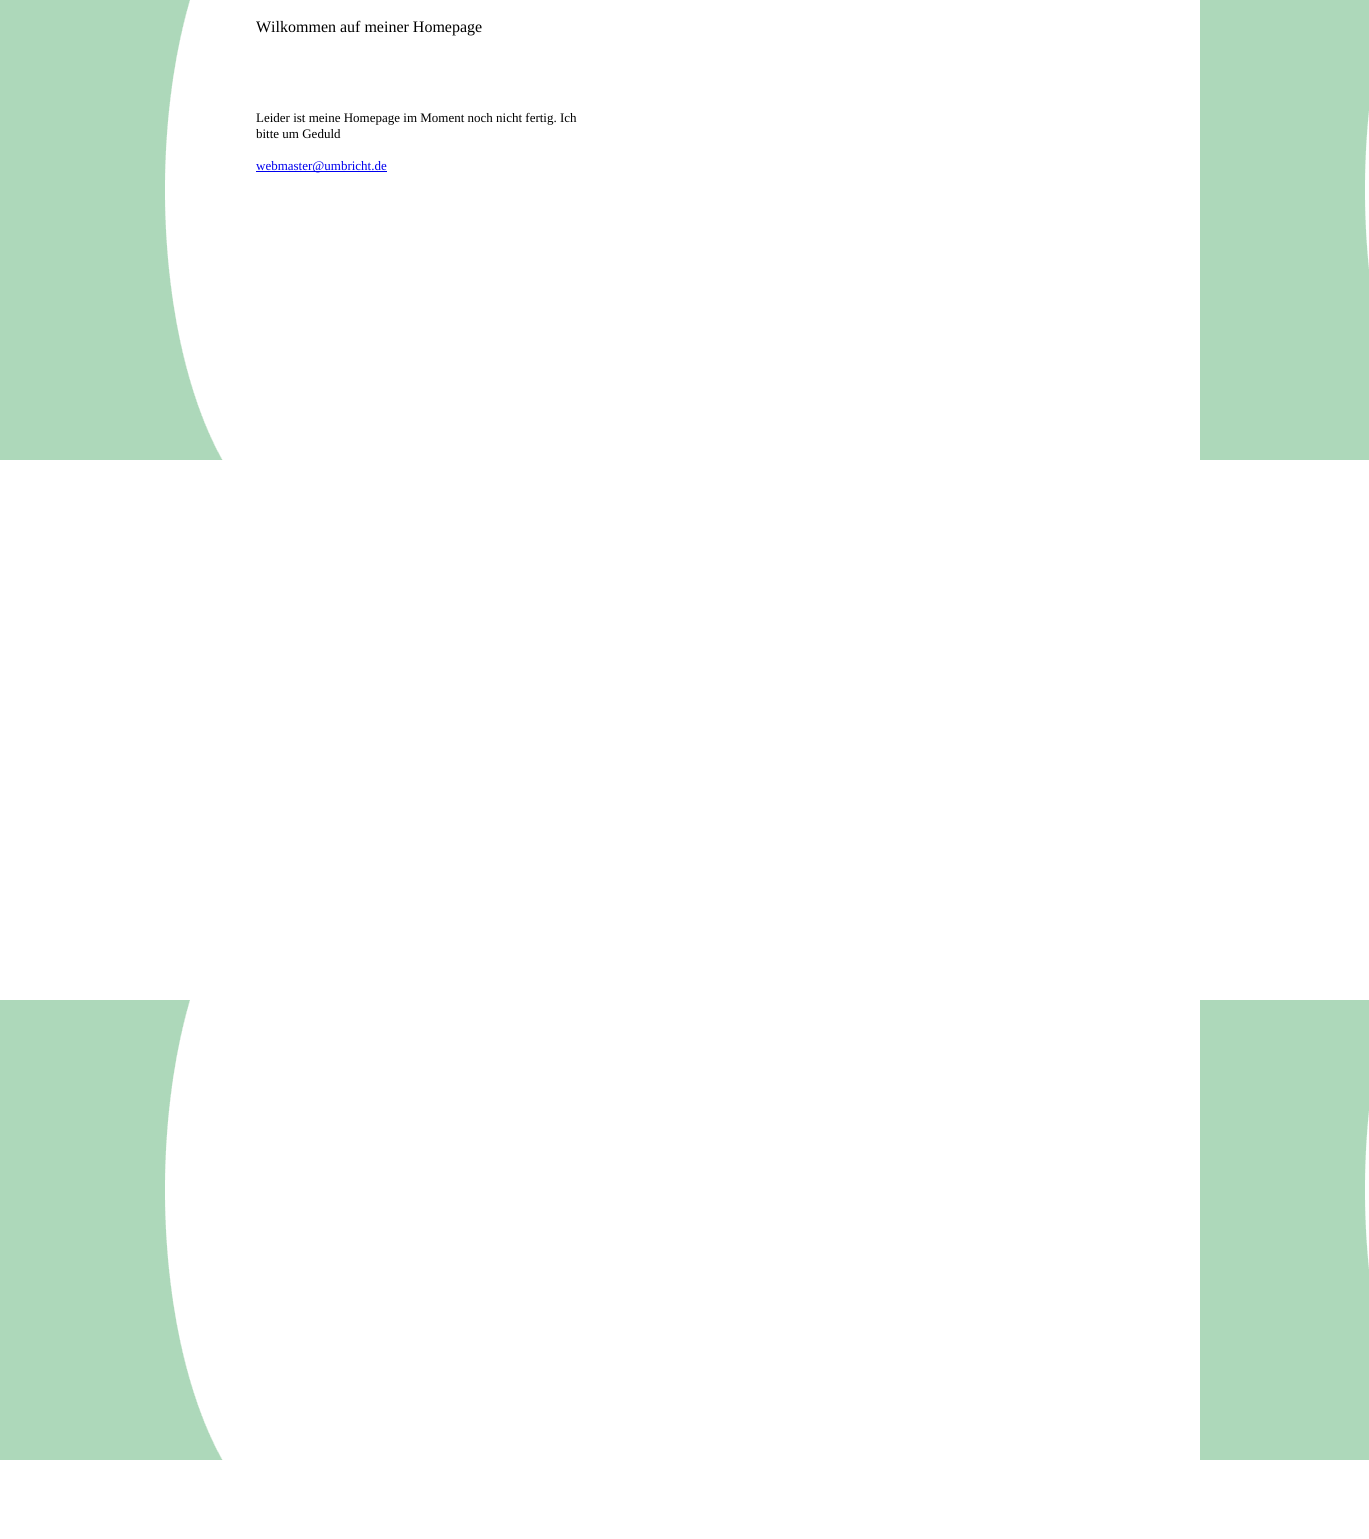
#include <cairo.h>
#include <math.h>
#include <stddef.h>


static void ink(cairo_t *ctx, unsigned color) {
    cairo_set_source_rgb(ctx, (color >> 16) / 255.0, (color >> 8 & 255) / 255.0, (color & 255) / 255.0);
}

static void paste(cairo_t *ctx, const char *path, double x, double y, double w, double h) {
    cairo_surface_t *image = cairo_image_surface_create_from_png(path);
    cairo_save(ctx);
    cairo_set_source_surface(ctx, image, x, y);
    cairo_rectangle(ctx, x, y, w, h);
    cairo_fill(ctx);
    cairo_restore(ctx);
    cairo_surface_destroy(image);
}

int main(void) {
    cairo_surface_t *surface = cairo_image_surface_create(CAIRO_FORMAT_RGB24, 1369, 1539);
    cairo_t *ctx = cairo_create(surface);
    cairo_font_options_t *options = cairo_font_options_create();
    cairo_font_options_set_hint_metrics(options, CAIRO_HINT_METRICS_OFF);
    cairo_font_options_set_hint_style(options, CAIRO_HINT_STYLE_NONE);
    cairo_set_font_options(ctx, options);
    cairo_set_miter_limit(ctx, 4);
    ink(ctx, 0xFFFFFF);
    cairo_paint(ctx);
    paste(ctx, "media/1.png", 0, 0, 1369, 1460);
    cairo_select_font_face(ctx, "Liberation Serif", CAIRO_FONT_SLANT_NORMAL, CAIRO_FONT_WEIGHT_NORMAL);
    cairo_set_font_size(ctx, 16);
    ink(ctx, 0x000000);
    cairo_move_to(ctx, 256, 32);
    cairo_show_text(ctx, "Wilkommen auf meiner Homepage");
    cairo_set_font_size(ctx, 13);
    cairo_move_to(ctx, 256, 122);
    cairo_show_text(ctx, "Leider ist meine Homepage im Moment noch nicht fertig. Ich");
    cairo_move_to(ctx, 256, 138);
    cairo_show_text(ctx, "bitte um Geduld");
    ink(ctx, 0x0000EE);
    cairo_rectangle(ctx, 256, 171, 131, 1);
    cairo_fill(ctx);
    cairo_move_to(ctx, 256, 170);
    cairo_show_text(ctx, "webmaster@umbricht.de");
    cairo_surface_write_to_png(surface, "image.png");
    cairo_font_options_destroy(options);
    cairo_destroy(ctx);
    cairo_surface_destroy(surface);
    return 0;
}
